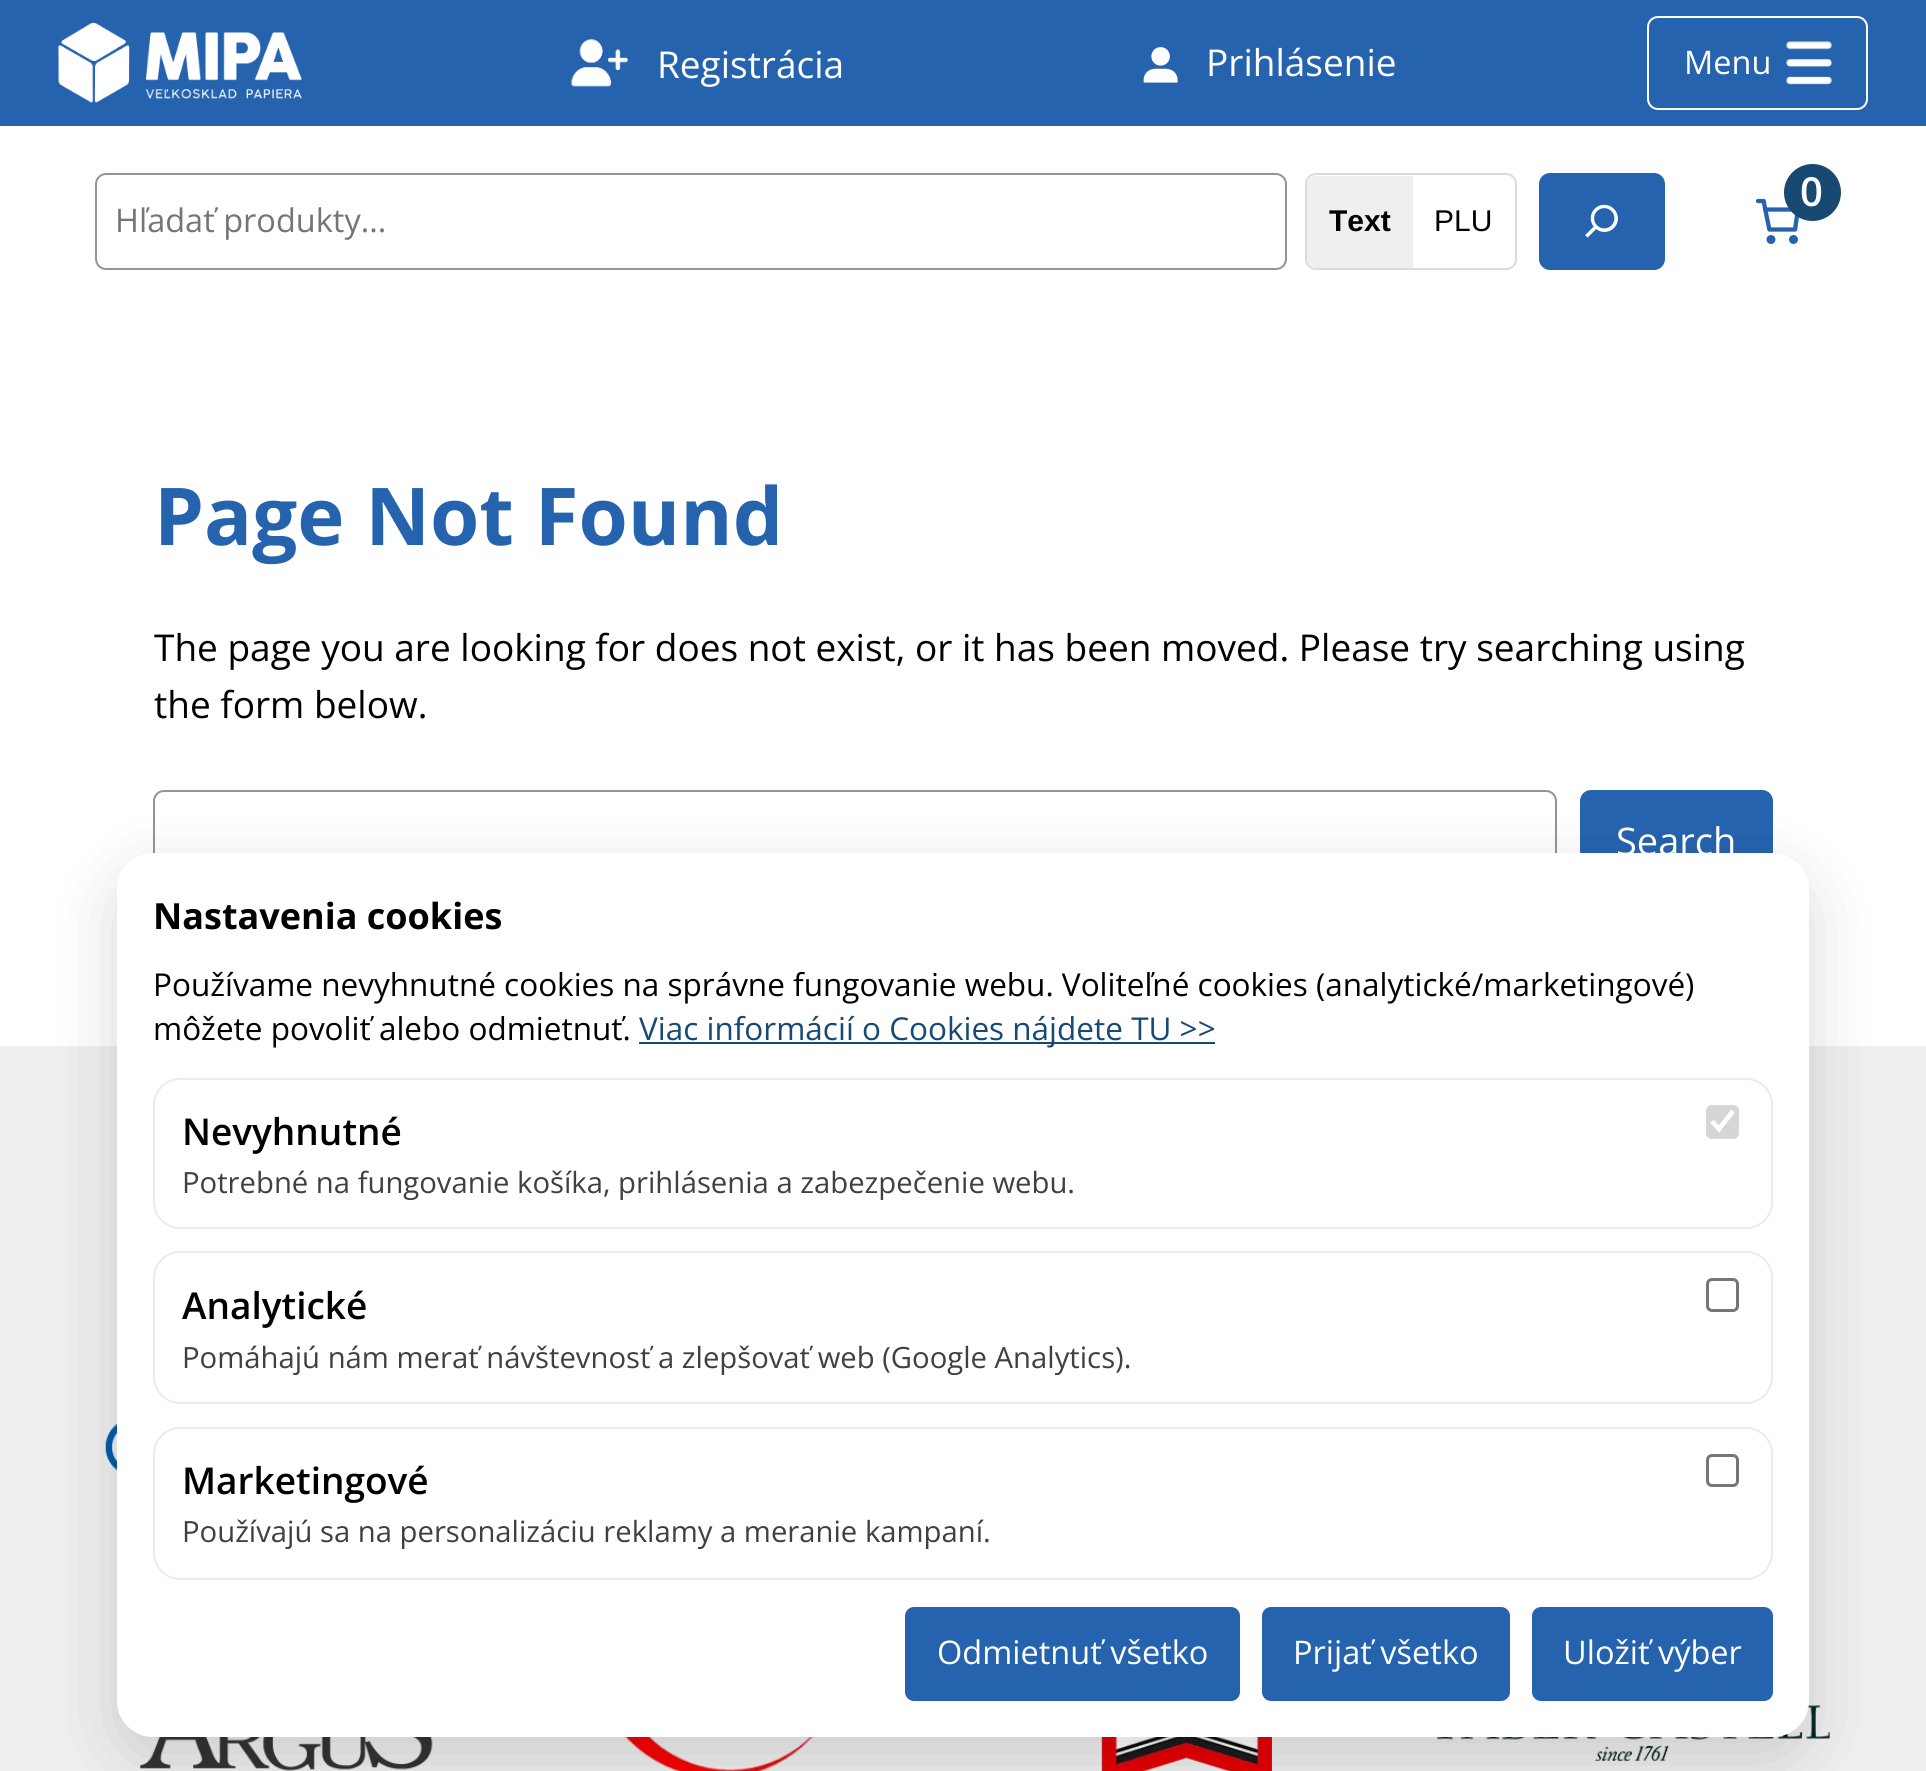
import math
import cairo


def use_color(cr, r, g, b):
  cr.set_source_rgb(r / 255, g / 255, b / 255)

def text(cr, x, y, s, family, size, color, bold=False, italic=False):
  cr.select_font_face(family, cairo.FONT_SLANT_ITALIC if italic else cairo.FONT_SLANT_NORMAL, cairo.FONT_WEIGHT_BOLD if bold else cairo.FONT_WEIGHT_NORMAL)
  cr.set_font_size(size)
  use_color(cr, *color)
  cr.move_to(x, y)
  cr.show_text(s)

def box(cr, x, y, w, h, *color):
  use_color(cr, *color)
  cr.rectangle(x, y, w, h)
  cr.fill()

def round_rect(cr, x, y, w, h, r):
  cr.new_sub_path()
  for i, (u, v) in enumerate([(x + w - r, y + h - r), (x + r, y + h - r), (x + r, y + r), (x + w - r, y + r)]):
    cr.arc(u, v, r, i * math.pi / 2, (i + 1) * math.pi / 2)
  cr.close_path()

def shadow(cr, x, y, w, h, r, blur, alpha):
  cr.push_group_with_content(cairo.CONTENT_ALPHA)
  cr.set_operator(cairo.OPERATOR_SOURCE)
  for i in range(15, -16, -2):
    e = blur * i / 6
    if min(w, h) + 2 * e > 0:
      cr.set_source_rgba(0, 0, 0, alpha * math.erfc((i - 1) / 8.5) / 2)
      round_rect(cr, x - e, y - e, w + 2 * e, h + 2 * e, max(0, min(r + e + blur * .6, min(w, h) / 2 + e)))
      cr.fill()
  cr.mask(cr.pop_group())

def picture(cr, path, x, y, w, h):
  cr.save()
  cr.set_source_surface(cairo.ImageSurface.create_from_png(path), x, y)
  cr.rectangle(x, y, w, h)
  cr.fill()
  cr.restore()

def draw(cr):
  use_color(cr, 255, 255, 255)
  cr.paint()
  box(cr, 0, 0, 1926, 126, 38, 99, 175)
  picture(cr, "img_01.png", 58, 22, 244, 81)
  picture(cr, "img_02.png", 571, 39, 57, 48)
  picture(cr, "img_03.png", 1143, 47, 35, 36)
  round_rect(cr, 1648, 17, 219, 92, 10)
  use_color(cr, 255, 255, 255)
  cr.stroke()
  picture(cr, "img_04.png", 1786, 41, 46, 44)
  picture(cr, "img_05.png", 1755, 198, 44, 46)
  use_color(cr, 24, 73, 115)
  cr.arc(1812.5, 192.5, 28.5, 0, 2 * math.pi)
  cr.fill()
  round_rect(cr, 96, 174, 1190, 95, 10)
  use_color(cr, 148, 148, 148)
  cr.stroke()
  round_rect(cr, 1306, 174, 210, 95, 10)
  use_color(cr, 220, 219, 219)
  cr.stroke()
  use_color(cr, 240, 239, 239)
  cr.new_path()
  cr.move_to(1316, 176)
  cr.line_to(1413, 176)
  cr.line_to(1413, 268)
  cr.line_to(1316, 268)
  cr.curve_to(1311, 268, 1307, 264, 1307, 259)
  cr.line_to(1307, 185)
  cr.curve_to(1307, 180, 1311, 176, 1316, 176)
  cr.close_path()
  cr.fill()
  use_color(cr, 38, 99, 175)
  round_rect(cr, 1539, 173, 126, 97, 11)
  cr.fill()
  picture(cr, "img_06.png", 1585, 204, 33, 34)
  round_rect(cr, 154, 791, 1402, 101, 10)
  use_color(cr, 148, 148, 148)
  cr.stroke()
  use_color(cr, 38, 99, 175)
  round_rect(cr, 1580, 790, 193, 103, 11)
  cr.fill()
  box(cr, 0, 1046, 1926, 725, 240, 239, 239)
  picture(cr, "img_07.png", 105, 1423, 12, 48)
  picture(cr, "img_08.png", 139, 1737, 294, 34)
  picture(cr, "img_09.png", 624, 1737, 190, 34)
  picture(cr, "img_10.png", 1101, 1737, 171, 34)
  picture(cr, "img_11.png", 1437, 1705, 393, 56)
  use_color(cr, 0, 0, 0)
  shadow(cr, 117, 875, 1692, 885, 36, 34, 0.15)
  use_color(cr, 255, 255, 255)
  round_rect(cr, 117, 853, 1692, 884, 36)
  cr.fill()
  box(cr, 639, 1042, 576, 2, 24, 73, 115)
  round_rect(cr, 154, 1079, 1618, 149, 26)
  use_color(cr, 235, 235, 235)
  cr.stroke()
  use_color(cr, 214, 214, 214)
  round_rect(cr, 1706, 1105, 33, 34, 6)
  cr.fill()
  cr.new_path()
  cr.move_to(1712, 1121.5)
  cr.line_to(1719, 1129)
  cr.line_to(1733, 1111)
  use_color(cr, 255, 255, 255)
  cr.set_line_width(4.7)
  cr.stroke()
  round_rect(cr, 154, 1252, 1618, 151, 26)
  use_color(cr, 235, 235, 235)
  cr.set_line_width(2)
  cr.stroke()
  round_rect(cr, 1707.5, 1279.5, 30, 31, 4.5)
  use_color(cr, 118, 118, 118)
  cr.set_line_width(3)
  cr.stroke()
  round_rect(cr, 154, 1428, 1618, 151, 26)
  use_color(cr, 235, 235, 235)
  cr.set_line_width(2)
  cr.stroke()
  round_rect(cr, 1707.5, 1455.5, 30, 30, 4.5)
  use_color(cr, 118, 118, 118)
  cr.set_line_width(3)
  cr.stroke()
  use_color(cr, 38, 99, 175)
  round_rect(cr, 905, 1607, 335, 94, 9)
  cr.fill()
  round_rect(cr, 1262, 1607, 248, 94, 9)
  cr.fill()
  round_rect(cr, 1532, 1607, 241, 94, 9)
  cr.fill()
  text(cr, 657, 78, "Registrácia", "Open Sans", 37, (255, 255, 255))
  text(cr, 1206, 76, "Prihlásenie", "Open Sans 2", 37, (255, 255, 255))
  text(cr, 1684, 74, "Menu", "Open Sans", 32.5, (255, 255, 255))
  text(cr, 1800, 206, "0", "Open Sans SemiBold", 40, (255, 255, 255))
  text(cr, 115, 232, "Hľadať produkty...", "Open Sans 2", 32.5, (117, 117, 117))
  text(cr, 1329, 231, "Text", "Liberation Sans", 30, (0, 0, 0), bold=True)
  text(cr, 1434, 231, "PLU", "Liberation Sans", 30, (0, 0, 0))
  text(cr, 154, 545, "Page Not Found", "Open Sans", 79.75, (38, 99, 175), bold=True)
  text(cr, 154, 661, "The page you are looking for does not exist, or it has been moved. Please try searching using", "Open Sans 2", 37, (0, 0, 0))
  text(cr, 154, 718, "the form below.", "Open Sans 2", 37, (0, 0, 0))
  text(cr, 1616, 855, "Search", "Open Sans", 38, (255, 255, 255))
  text(cr, 153, 929, "Nastavenia cookies", "Open Sans", 36, (0, 0, 0), bold=True)
  text(cr, 153, 996, "Používame nevyhnutné cookies na správne fungovanie webu. Voliteľné cookies (analytické/marketingové)", "Open Sans 2", 31.5, (0, 0, 0))
  text(cr, 153, 1040, "môžete povoliť alebo odmietnuť.", "Open Sans 2", 31.5, (0, 0, 0))
  text(cr, 639, 1040, "Viac informácií o Cookies nájdete TU >>", "Open Sans 2", 31.5, (24, 73, 115))
  text(cr, 182, 1145, "Nevyhnutné", "Open Sans SemiBold", 37, (0, 0, 0))
  text(cr, 182, 1193, "Potrebné na fungovanie košíka, prihlásenia a zabezpečenie webu.", "Open Sans 2", 29.25, (64, 64, 64))
  text(cr, 182, 1319, "Analytické", "Open Sans SemiBold", 37, (0, 0, 0))
  text(cr, 182, 1368, "Pomáhajú nám merať návštevnosť a zlepšovať web (Google Analytics).", "Open Sans 2", 29.25, (64, 64, 64))
  text(cr, 182, 1494, "Marketingové", "Open Sans SemiBold", 37, (0, 0, 0))
  text(cr, 182, 1542, "Používajú sa na personalizáciu reklamy a meranie kampaní.", "Open Sans 2", 29.25, (64, 64, 64))
  text(cr, 937, 1664, "Odmietnuť všetko", "Open Sans", 32.5, (255, 255, 255))
  text(cr, 1293, 1664, "Prijať všetko", "Open Sans", 32.5, (255, 255, 255))
  text(cr, 1563, 1664, "Uložiť výber", "Open Sans", 32.5, (255, 255, 255))


surface = cairo.ImageSurface(cairo.FORMAT_RGB24, 1926, 1771)
cr = cairo.Context(surface)
options = cairo.FontOptions()
options.set_hint_metrics(cairo.HINT_METRICS_OFF)
options.set_hint_style(cairo.HINT_STYLE_NONE)
cr.set_font_options(options)
cr.set_miter_limit(4)
draw(cr)
surface.write_to_png("out.png")
